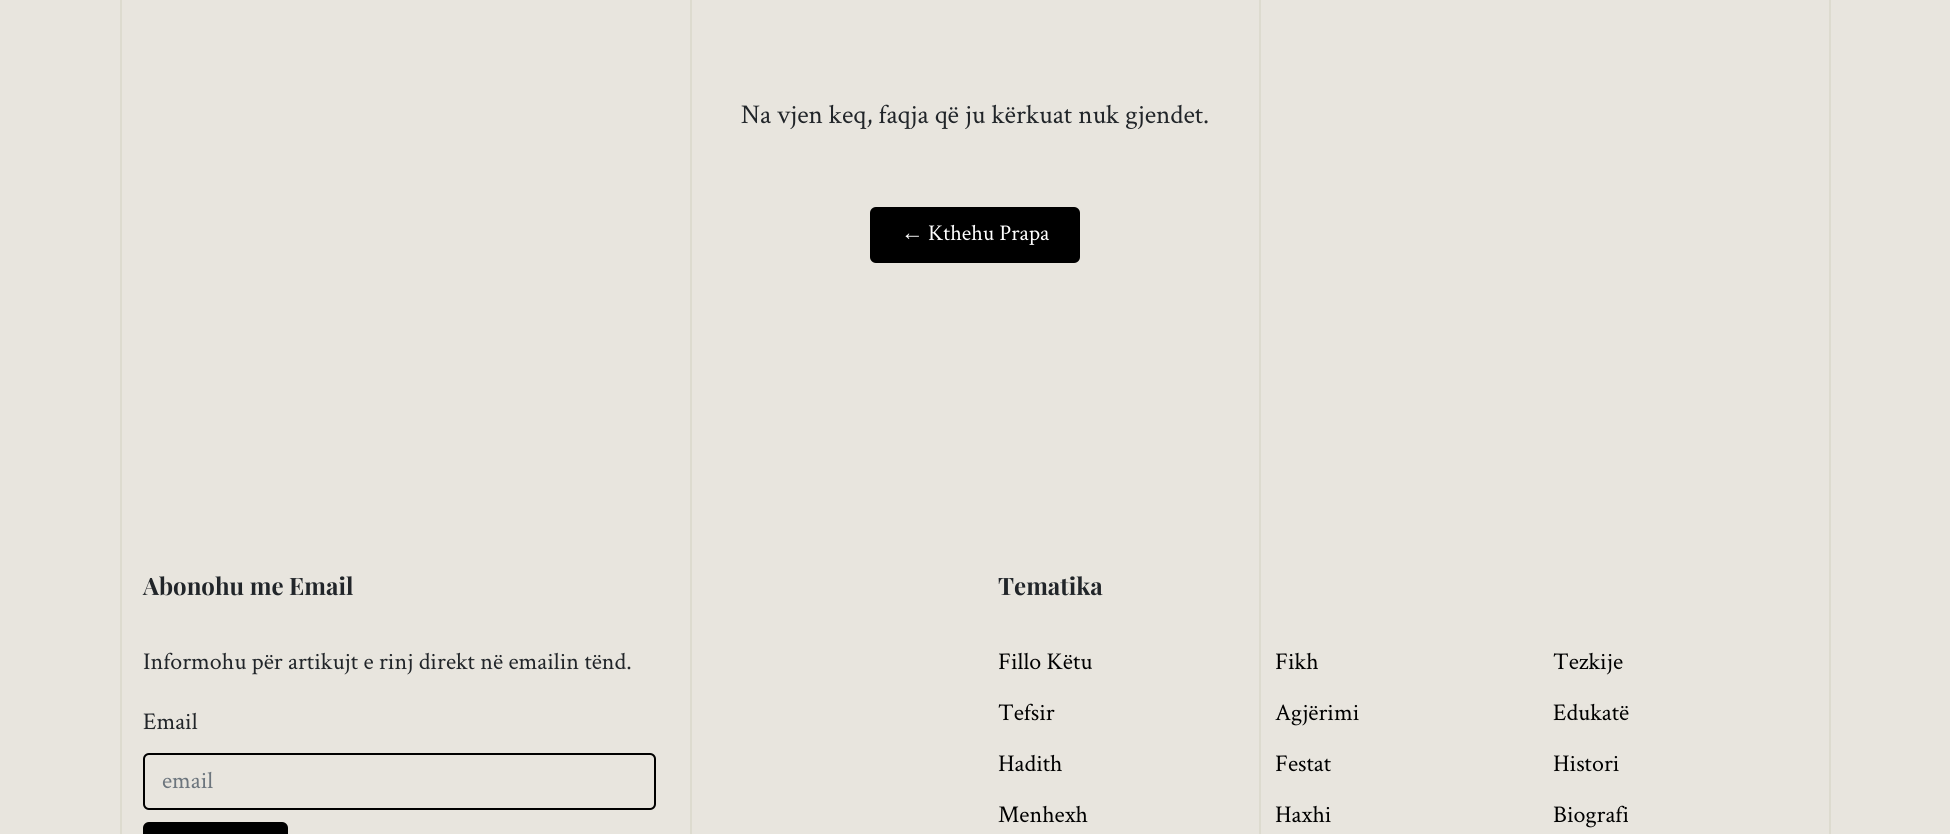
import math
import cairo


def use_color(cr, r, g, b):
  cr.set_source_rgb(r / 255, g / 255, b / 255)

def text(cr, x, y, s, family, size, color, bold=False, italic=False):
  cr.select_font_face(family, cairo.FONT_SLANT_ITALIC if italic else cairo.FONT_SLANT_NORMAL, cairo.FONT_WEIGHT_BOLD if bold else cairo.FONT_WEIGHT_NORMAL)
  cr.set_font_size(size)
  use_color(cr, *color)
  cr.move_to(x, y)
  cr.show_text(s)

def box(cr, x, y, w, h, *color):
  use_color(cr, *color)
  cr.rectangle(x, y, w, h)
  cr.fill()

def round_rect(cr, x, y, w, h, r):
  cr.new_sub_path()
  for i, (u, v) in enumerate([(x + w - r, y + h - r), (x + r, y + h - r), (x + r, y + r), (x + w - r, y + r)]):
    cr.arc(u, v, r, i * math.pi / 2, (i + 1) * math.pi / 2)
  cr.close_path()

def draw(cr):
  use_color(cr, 232, 229, 222)
  cr.paint()
  box(cr, 1829, 0, 2, 834, 221, 219, 207)
  box(cr, 120, 0, 2, 834, 221, 219, 207)
  box(cr, 1259, 0, 2, 834, 221, 219, 207)
  box(cr, 690, 0, 2, 834, 221, 219, 207)
  use_color(cr, 0, 0, 0)
  round_rect(cr, 871, 208, 208, 54, 5)
  cr.fill_preserve()
  cr.stroke()
  round_rect(cr, 144, 754, 511, 55, 5)
  cr.stroke()
  round_rect(cr, 144, 823, 143, 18, 5)
  cr.fill_preserve()
  cr.stroke()
  text(cr, 741, 123, "Na vjen keq, faqja që ju kërkuat nuk gjendet.", "Crimson Text", 27, (33, 37, 41))
  text(cr, 901, 240, "←", "Liberation Serif", 22.5, (255, 255, 255))
  text(cr, 928, 240, "Kthehu Prapa", "Crimson Text", 22.5, (255, 255, 255))
  text(cr, 143, 595, "Abonohu me Email", "Playfair Display", 24, (33, 37, 41), bold=True)
  text(cr, 143, 669, "Informohu për artikujt e rinj direkt në emailin tënd.", "Crimson Text", 24, (33, 37, 41))
  text(cr, 143, 729, "Email", "Crimson Text", 24, (33, 37, 41))
  text(cr, 162, 788, "email", "Crimson Text", 24, (108, 117, 125))
  text(cr, 998, 595, "Tematika", "Playfair Display", 24, (33, 37, 41), bold=True)
  text(cr, 998, 669, "Fillo Këtu", "Crimson Text", 24, (0, 0, 0))
  text(cr, 1275, 669, "Fikh", "Crimson Text", 24, (0, 0, 0))
  text(cr, 1553, 669, "Tezkije", "Crimson Text", 24, (0, 0, 0))
  text(cr, 998, 720, "Tefsir", "Crimson Text", 24, (0, 0, 0))
  text(cr, 1275, 720, "Agjërimi", "Crimson Text", 24, (0, 0, 0))
  text(cr, 1553, 720, "Edukatë", "Crimson Text", 24, (0, 0, 0))
  text(cr, 998, 771, "Hadith", "Crimson Text", 24, (0, 0, 0))
  text(cr, 1275, 771, "Festat", "Crimson Text", 24, (0, 0, 0))
  text(cr, 1553, 771, "Histori", "Crimson Text", 24, (0, 0, 0))
  text(cr, 998, 822, "Menhexh", "Crimson Text", 24, (0, 0, 0))
  text(cr, 1275, 822, "Haxhi", "Crimson Text", 24, (0, 0, 0))
  text(cr, 1553, 822, "Biografi", "Crimson Text", 24, (0, 0, 0))


surface = cairo.ImageSurface(cairo.FORMAT_RGB24, 1950, 834)
cr = cairo.Context(surface)
options = cairo.FontOptions()
options.set_hint_metrics(cairo.HINT_METRICS_OFF)
options.set_hint_style(cairo.HINT_STYLE_NONE)
cr.set_font_options(options)
cr.set_miter_limit(4)
draw(cr)
surface.write_to_png("out.png")
